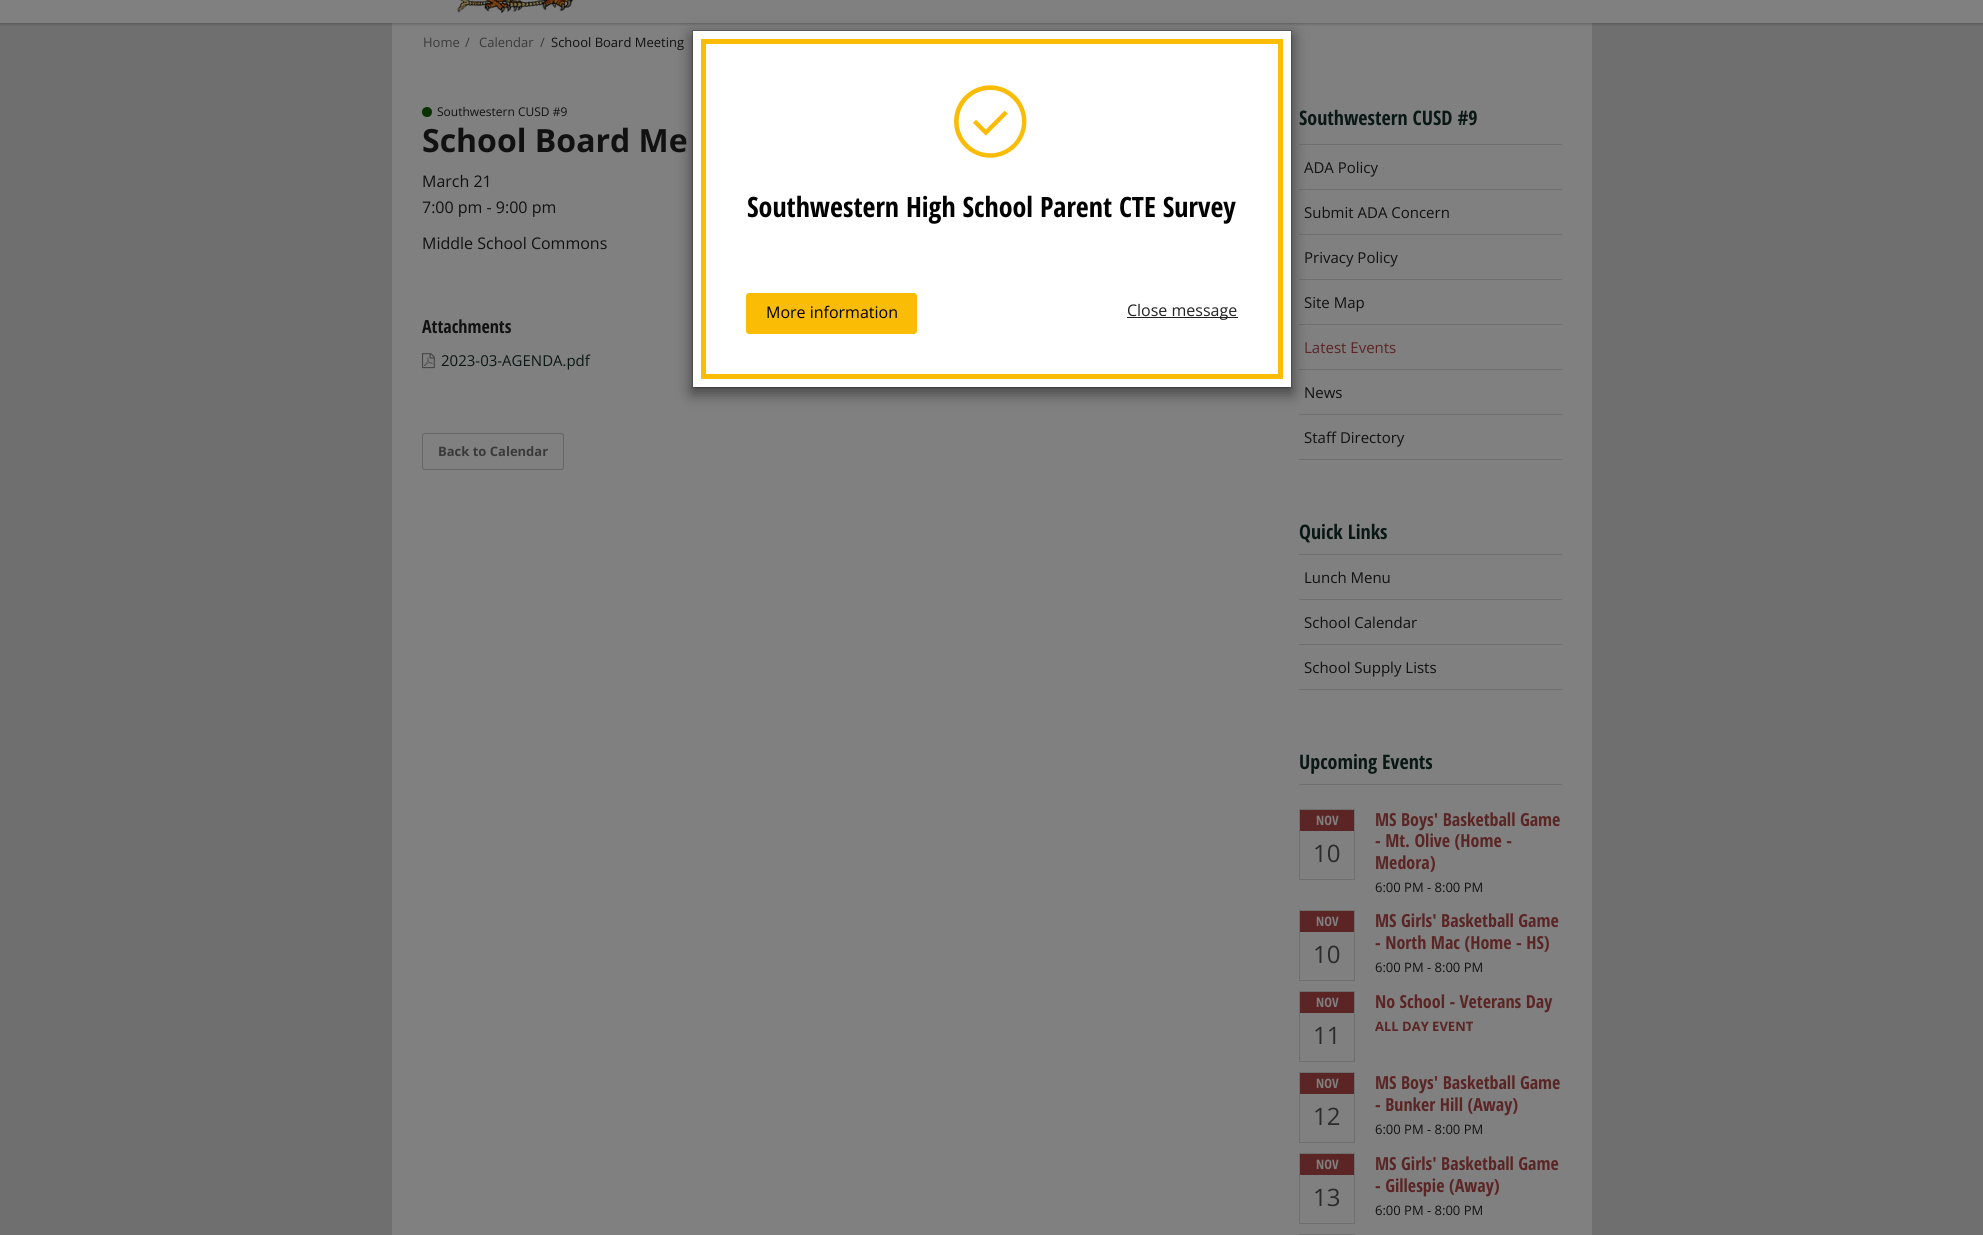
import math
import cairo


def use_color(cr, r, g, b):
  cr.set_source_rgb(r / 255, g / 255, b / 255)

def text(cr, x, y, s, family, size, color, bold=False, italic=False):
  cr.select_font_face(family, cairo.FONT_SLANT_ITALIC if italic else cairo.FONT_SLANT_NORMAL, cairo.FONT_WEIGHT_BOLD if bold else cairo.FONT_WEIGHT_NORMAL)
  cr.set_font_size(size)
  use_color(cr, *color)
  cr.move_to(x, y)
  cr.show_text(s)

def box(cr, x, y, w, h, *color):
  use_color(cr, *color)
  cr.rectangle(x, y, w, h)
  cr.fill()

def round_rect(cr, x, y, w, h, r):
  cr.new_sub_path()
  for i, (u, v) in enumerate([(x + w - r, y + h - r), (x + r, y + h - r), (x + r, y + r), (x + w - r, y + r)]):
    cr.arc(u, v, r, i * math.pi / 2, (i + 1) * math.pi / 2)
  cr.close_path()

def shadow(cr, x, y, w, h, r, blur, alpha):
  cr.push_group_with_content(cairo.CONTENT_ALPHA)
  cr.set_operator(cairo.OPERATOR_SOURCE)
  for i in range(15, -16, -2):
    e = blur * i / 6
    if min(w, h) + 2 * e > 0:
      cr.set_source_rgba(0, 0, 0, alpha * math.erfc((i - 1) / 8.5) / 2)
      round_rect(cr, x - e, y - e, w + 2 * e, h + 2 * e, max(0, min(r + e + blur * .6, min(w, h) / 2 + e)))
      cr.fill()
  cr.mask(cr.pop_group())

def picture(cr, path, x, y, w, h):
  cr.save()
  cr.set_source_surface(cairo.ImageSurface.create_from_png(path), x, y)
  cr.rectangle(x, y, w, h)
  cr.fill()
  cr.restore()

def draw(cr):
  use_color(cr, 111, 111, 111)
  cr.paint()
  box(cr, 392, 23, 1200, 1212, 128, 128, 128)
  use_color(cr, 0, 0, 0)
  shadow(cr, 0, -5, 1983, 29, 0, 1.5, 0.25)
  box(cr, 0, 0, 1983, 23, 128, 128, 128)
  picture(cr, "img_01.png", 457, 0, 117, 14)
  use_color(cr, 8, 51, 1)
  cr.arc(427, 112, 5, 0, 2 * math.pi)
  cr.fill()
  picture(cr, "img_02.png", 422, 353, 13, 16)
  round_rect(cr, 422.5, 433.5, 141, 36, 2.5)
  use_color(cr, 102, 102, 102)
  cr.set_line_width(1)
  cr.stroke()
  box(cr, 1299, 144, 263, 1, 111, 111, 111)
  box(cr, 1299, 189, 263, 1, 111, 111, 111)
  box(cr, 1299, 234, 263, 1, 111, 111, 111)
  box(cr, 1299, 279, 263, 1, 111, 111, 111)
  box(cr, 1299, 324, 263, 1, 111, 111, 111)
  box(cr, 1299, 369, 263, 1, 111, 111, 111)
  box(cr, 1299, 414, 263, 1, 111, 111, 111)
  box(cr, 1299, 459, 263, 1, 111, 111, 111)
  box(cr, 1299, 554, 263, 1, 111, 111, 111)
  box(cr, 1299, 599, 263, 1, 111, 111, 111)
  box(cr, 1299, 644, 263, 1, 111, 111, 111)
  box(cr, 1299, 689, 263, 1, 111, 111, 111)
  box(cr, 1299, 784, 263, 1, 111, 111, 111)
  cr.rectangle(1299.5, 809.5, 55, 70)
  cr.stroke()
  box(cr, 1300, 810, 54, 21, 90, 37, 36)
  cr.rectangle(1299.5, 910.5, 55, 70)
  use_color(cr, 111, 111, 111)
  cr.stroke()
  box(cr, 1300, 911, 54, 21, 90, 37, 36)
  cr.rectangle(1299.5, 991.5, 55, 70)
  use_color(cr, 111, 111, 111)
  cr.stroke()
  box(cr, 1300, 992, 54, 21, 90, 37, 36)
  cr.rectangle(1299.5, 1072.5, 55, 70)
  use_color(cr, 111, 111, 111)
  cr.stroke()
  box(cr, 1300, 1073, 54, 21, 90, 37, 36)
  cr.rectangle(1299.5, 1153.5, 55, 70)
  use_color(cr, 111, 111, 111)
  cr.stroke()
  box(cr, 1300, 1154, 54, 21, 90, 37, 36)
  cr.rectangle(1299.5, 1234.5, 55, 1)
  use_color(cr, 111, 111, 111)
  cr.stroke()
  use_color(cr, 0, 0, 0)
  shadow(cr, 692, 35, 600, 358, 0, 7.5, 0.5)
  box(cr, 693, 31, 598, 356, 255, 255, 255)
  cr.rectangle(692.5, 30.5, 599, 357)
  cr.set_source_rgba(0, 0, 0, 0.2)
  cr.stroke()
  cr.rectangle(703.5, 41.5, 577, 335)
  use_color(cr, 251, 188, 5)
  cr.set_line_width(5)
  cr.stroke()
  picture(cr, "img_03.png", 954, 85, 73, 73)
  round_rect(cr, 746, 293, 171, 41, 3)
  cr.fill()
  box(cr, 1127, 317, 111, 1, 34, 34, 34)
  text(cr, 423, 47, "Home", "Open Sans", 13, (58, 58, 58))
  text(cr, 465, 47, "/", "Open Sans", 13, (58, 58, 58))
  text(cr, 479, 47, "Calendar", "Open Sans", 13, (58, 58, 58))
  text(cr, 540, 47, "/", "Open Sans", 13, (58, 58, 58))
  text(cr, 551, 47, "School Board Meeting", "Open Sans", 13, (17, 17, 17))
  text(cr, 437, 116, "Southwestern CUSD #9", "Open Sans", 12, (17, 17, 17))
  text(cr, 422, 152, "School Board Me", "Open Sans", 32, (17, 17, 17), bold=True)
  text(cr, 422, 187, "March 21", "Open Sans", 16, (17, 17, 17))
  text(cr, 422, 213, "7:00 pm - 9:00 pm", "Open Sans", 16, (17, 17, 17))
  text(cr, 422, 249, "Middle School Commons", "Open Sans", 16, (17, 17, 17))
  text(cr, 422, 333, "Attachments", "Open Sans Condensed", 18, (17, 17, 17), bold=True)
  text(cr, 441, 366, "2023-03-AGENDA.pdf", "Open Sans", 15, (10, 24, 21))
  text(cr, 438, 456, "Back to Calendar", "Open Sans", 13, (58, 58, 58), bold=True)
  text(cr, 1299, 125, "Southwestern CUSD #9", "Open Sans Condensed", 20, (10, 24, 21), bold=True)
  text(cr, 1304, 173, "ADA Policy", "Open Sans", 15, (17, 17, 17))
  text(cr, 1304, 218, "Submit ADA Concern", "Open Sans", 15, (17, 17, 17))
  text(cr, 1304, 263, "Privacy Policy", "Open Sans", 15, (17, 17, 17))
  text(cr, 1304, 308, "Site Map", "Open Sans", 15, (17, 17, 17))
  text(cr, 1304, 353, "Latest Events", "Open Sans", 15, (90, 37, 36))
  text(cr, 1304, 398, "News", "Open Sans", 15, (17, 17, 17))
  text(cr, 1304, 443, "Staff Directory", "Open Sans", 15, (17, 17, 17))
  text(cr, 1299, 539, "Quick Links", "Open Sans Condensed", 20, (10, 24, 21), bold=True)
  text(cr, 1304, 583, "Lunch Menu", "Open Sans", 15, (17, 17, 17))
  text(cr, 1304, 628, "School Calendar", "Open Sans", 15, (17, 17, 17))
  text(cr, 1304, 673, "School Supply Lists", "Open Sans", 15, (17, 17, 17))
  text(cr, 1299, 769, "Upcoming Events", "Open Sans Condensed", 20, (10, 24, 21), bold=True)
  text(cr, 1316, 825, "NOV", "Open Sans Condensed", 13, (128, 128, 128), bold=True)
  text(cr, 1313, 862, "10", "Open Sans", 24, (43, 43, 43))
  text(cr, 1375, 826, "MS Boys' Basketball Game", "Open Sans Condensed", 18, (90, 37, 36), bold=True)
  text(cr, 1375, 847, "- Mt. Olive (Home -", "Open Sans Condensed", 18, (90, 37, 36), bold=True)
  text(cr, 1375, 869, "Medora)", "Open Sans Condensed", 18, (90, 37, 36), bold=True)
  text(cr, 1375, 892, "6:00 PM - 8:00 PM", "Open Sans", 13, (17, 17, 17))
  text(cr, 1316, 926, "NOV", "Open Sans Condensed", 13, (128, 128, 128), bold=True)
  text(cr, 1313, 963, "10", "Open Sans", 24, (43, 43, 43))
  text(cr, 1375, 927, "MS Girls' Basketball Game", "Open Sans Condensed", 18, (90, 37, 36), bold=True)
  text(cr, 1375, 949, "- North Mac (Home - HS)", "Open Sans Condensed", 18, (90, 37, 36), bold=True)
  text(cr, 1375, 972, "6:00 PM - 8:00 PM", "Open Sans", 13, (17, 17, 17))
  text(cr, 1316, 1007, "NOV", "Open Sans Condensed", 13, (128, 128, 128), bold=True)
  text(cr, 1313, 1044, "11", "Open Sans", 24, (43, 43, 43))
  text(cr, 1375, 1008, "No School - Veterans Day", "Open Sans Condensed", 18, (90, 37, 36), bold=True)
  text(cr, 1375, 1031, "ALL DAY EVENT", "Open Sans", 13, (90, 37, 36), bold=True)
  text(cr, 1316, 1088, "NOV", "Open Sans Condensed", 13, (128, 128, 128), bold=True)
  text(cr, 1313, 1125, "12", "Open Sans", 24, (43, 43, 43))
  text(cr, 1375, 1089, "MS Boys' Basketball Game", "Open Sans Condensed", 18, (90, 37, 36), bold=True)
  text(cr, 1375, 1111, "- Bunker Hill (Away)", "Open Sans Condensed", 18, (90, 37, 36), bold=True)
  text(cr, 1375, 1134, "6:00 PM - 8:00 PM", "Open Sans", 13, (17, 17, 17))
  text(cr, 1316, 1169, "NOV", "Open Sans Condensed", 13, (128, 128, 128), bold=True)
  text(cr, 1313, 1206, "13", "Open Sans", 24, (43, 43, 43))
  text(cr, 1375, 1170, "MS Girls' Basketball Game", "Open Sans Condensed", 18, (90, 37, 36), bold=True)
  text(cr, 1375, 1192, "- Gillespie (Away)", "Open Sans Condensed", 18, (90, 37, 36), bold=True)
  text(cr, 1375, 1215, "6:00 PM - 8:00 PM", "Open Sans", 13, (17, 17, 17))
  text(cr, 747, 217, "Southwestern High School Parent CTE Survey", "Open Sans Condensed", 28, (0, 0, 0), bold=True)
  text(cr, 766, 318, "More information", "Open Sans", 16, (0, 0, 0))
  text(cr, 1127, 316, "Close message", "Open Sans", 16, (34, 34, 34))


surface = cairo.ImageSurface(cairo.FORMAT_RGB24, 1983, 1235)
cr = cairo.Context(surface)
options = cairo.FontOptions()
options.set_hint_metrics(cairo.HINT_METRICS_OFF)
options.set_hint_style(cairo.HINT_STYLE_NONE)
cr.set_font_options(options)
cr.set_miter_limit(4)
draw(cr)
surface.write_to_png("out.png")
